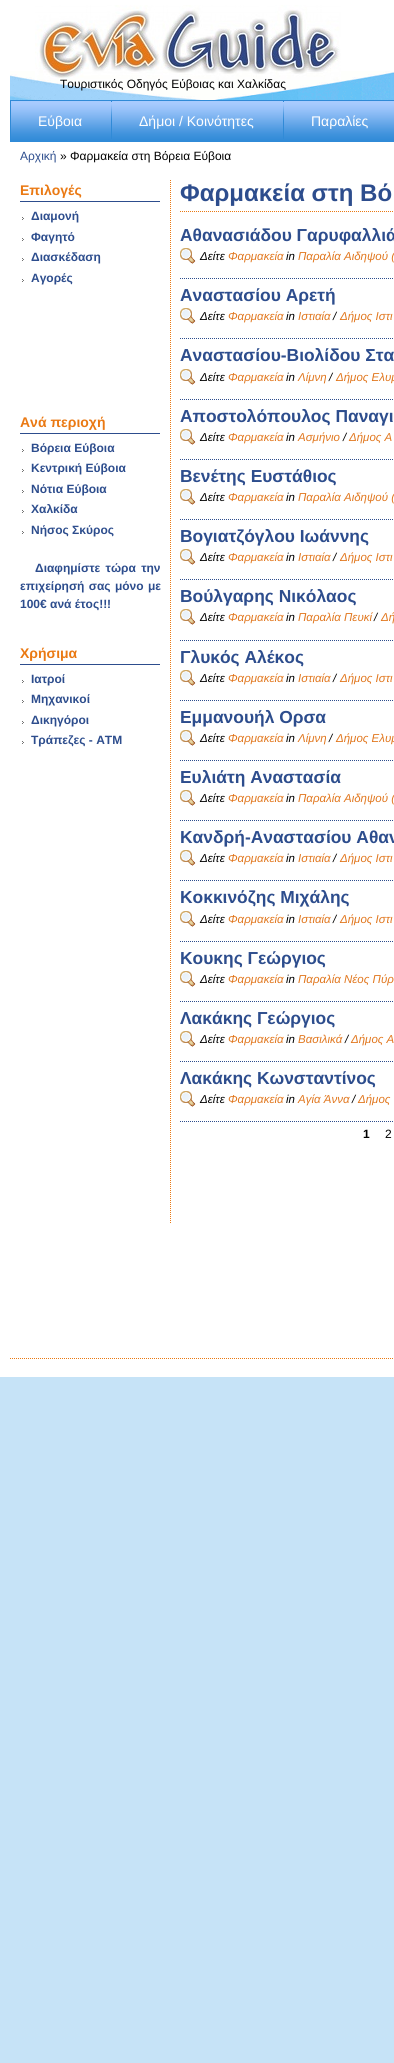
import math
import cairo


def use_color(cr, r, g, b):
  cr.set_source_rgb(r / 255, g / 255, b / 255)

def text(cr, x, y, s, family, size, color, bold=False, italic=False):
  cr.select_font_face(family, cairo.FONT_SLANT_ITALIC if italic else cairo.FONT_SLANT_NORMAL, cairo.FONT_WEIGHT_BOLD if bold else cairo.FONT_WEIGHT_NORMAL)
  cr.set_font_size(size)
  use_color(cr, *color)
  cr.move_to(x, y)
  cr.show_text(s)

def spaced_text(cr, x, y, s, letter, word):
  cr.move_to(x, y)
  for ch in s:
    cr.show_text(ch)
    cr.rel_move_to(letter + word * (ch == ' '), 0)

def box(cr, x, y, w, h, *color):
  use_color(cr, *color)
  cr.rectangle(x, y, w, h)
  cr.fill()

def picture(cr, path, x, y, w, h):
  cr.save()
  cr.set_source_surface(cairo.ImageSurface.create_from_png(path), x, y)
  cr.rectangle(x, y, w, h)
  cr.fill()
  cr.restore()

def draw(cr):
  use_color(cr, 198, 227, 247)
  cr.paint()
  box(cr, 0, 0, 394, 1377, 255, 255, 255)
  picture(cr, "img_01.png", 10, 71, 384, 29)
  picture(cr, "img_02.png", 35, 5, 306, 75)
  picture(cr, "img_03.png", 11, 101, 383, 40)
  cr.rectangle(10.5, 100.5, 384, 41)
  use_color(cr, 48, 138, 215)
  cr.set_line_width(1)
  cr.stroke()
  picture(cr, "img_04.png", 111, 101, 1, 38)
  picture(cr, "img_04.png", 283, 101, 1, 38)
  cr.new_path()
  cr.move_to(170.5, 180)
  cr.line_to(170.5, 1223)
  use_color(cr, 234, 121, 19)
  cr.set_dash([1, 1])
  cr.stroke()
  box(cr, 20, 201, 140, 1, 45, 77, 141)
  picture(cr, "img_05.png", 22, 217, 2, 3)
  picture(cr, "img_05.png", 22, 238, 2, 3)
  picture(cr, "img_05.png", 22, 258, 2, 3)
  picture(cr, "img_05.png", 22, 279, 2, 3)
  box(cr, 20, 433, 140, 1, 45, 77, 141)
  picture(cr, "img_05.png", 22, 449, 2, 3)
  picture(cr, "img_05.png", 22, 469, 2, 3)
  picture(cr, "img_05.png", 22, 490, 2, 3)
  picture(cr, "img_05.png", 22, 510, 2, 3)
  picture(cr, "img_05.png", 22, 531, 2, 3)
  box(cr, 20, 664, 140, 1, 45, 77, 141)
  picture(cr, "img_05.png", 22, 680, 2, 3)
  picture(cr, "img_05.png", 22, 700, 2, 3)
  picture(cr, "img_05.png", 22, 721, 2, 3)
  picture(cr, "img_05.png", 22, 741, 2, 3)
  cr.new_path()
  cr.move_to(180, 211.5)
  cr.line_to(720, 211.5)
  use_color(cr, 234, 121, 19)
  cr.stroke()
  cr.new_path()
  cr.move_to(180, 278.5)
  cr.line_to(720, 278.5)
  use_color(cr, 45, 77, 141)
  cr.stroke()
  picture(cr, "img_06.png", 180, 248, 16, 16)
  cr.new_path()
  cr.move_to(180, 338.5)
  cr.line_to(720, 338.5)
  cr.stroke()
  picture(cr, "img_06.png", 180, 308, 16, 16)
  cr.new_path()
  cr.move_to(180, 399.5)
  cr.line_to(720, 399.5)
  cr.stroke()
  picture(cr, "img_06.png", 180, 369, 16, 16)
  cr.new_path()
  cr.move_to(180, 459.5)
  cr.line_to(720, 459.5)
  cr.stroke()
  picture(cr, "img_06.png", 180, 429, 16, 16)
  cr.new_path()
  cr.move_to(180, 519.5)
  cr.line_to(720, 519.5)
  cr.stroke()
  picture(cr, "img_06.png", 180, 489, 16, 16)
  cr.new_path()
  cr.move_to(180, 579.5)
  cr.line_to(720, 579.5)
  cr.stroke()
  picture(cr, "img_06.png", 180, 549, 16, 16)
  cr.new_path()
  cr.move_to(180, 640.5)
  cr.line_to(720, 640.5)
  cr.stroke()
  picture(cr, "img_06.png", 180, 609, 16, 16)
  cr.new_path()
  cr.move_to(180, 700.5)
  cr.line_to(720, 700.5)
  cr.stroke()
  picture(cr, "img_06.png", 180, 670, 16, 16)
  cr.new_path()
  cr.move_to(180, 760.5)
  cr.line_to(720, 760.5)
  cr.stroke()
  picture(cr, "img_06.png", 180, 730, 16, 16)
  cr.new_path()
  cr.move_to(180, 820.5)
  cr.line_to(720, 820.5)
  cr.stroke()
  picture(cr, "img_06.png", 180, 790, 16, 16)
  cr.new_path()
  cr.move_to(180, 880.5)
  cr.line_to(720, 880.5)
  cr.stroke()
  picture(cr, "img_06.png", 180, 850, 16, 16)
  cr.new_path()
  cr.move_to(180, 941.5)
  cr.line_to(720, 941.5)
  cr.stroke()
  picture(cr, "img_06.png", 180, 911, 16, 16)
  cr.new_path()
  cr.move_to(180, 1001.5)
  cr.line_to(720, 1001.5)
  cr.stroke()
  picture(cr, "img_06.png", 180, 971, 16, 16)
  cr.new_path()
  cr.move_to(180, 1061.5)
  cr.line_to(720, 1061.5)
  cr.stroke()
  picture(cr, "img_06.png", 180, 1031, 16, 16)
  cr.new_path()
  cr.move_to(180, 1121.5)
  cr.line_to(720, 1121.5)
  cr.stroke()
  picture(cr, "img_06.png", 180, 1091, 16, 16)
  cr.new_path()
  cr.move_to(10, 1358.5)
  cr.line_to(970, 1358.5)
  use_color(cr, 234, 121, 19)
  cr.stroke()
  text(cr, 60, 88, "Τουριστικός Οδηγός Εύβοιας και Χαλκίδας", "Liberation Sans", 12, (0, 0, 0))
  text(cr, 38, 126, "Εύβοια", "Liberation Sans", 14, (255, 255, 255))
  text(cr, 139, 126, "Δήμοι / Κοινότητες", "Liberation Sans", 14, (255, 255, 255))
  text(cr, 311, 126, "Παραλίες", "Liberation Sans", 14, (255, 255, 255))
  text(cr, 20, 160, "Αρχική", "Liberation Sans", 12, (45, 77, 141))
  text(cr, 60, 160, "» Φαρμακεία στη Βόρεια Εύβοια", "Liberation Sans", 12, (0, 0, 0))
  text(cr, 20, 195, "Επιλογές", "Liberation Sans", 14, (234, 121, 19), bold=True)
  text(cr, 31, 220, "Διαμονή", "Liberation Sans", 12, (45, 77, 141), bold=True)
  text(cr, 31, 241, "Φαγητό", "Liberation Sans", 12, (45, 77, 141), bold=True)
  text(cr, 31, 261, "Διασκέδαση", "Liberation Sans", 12, (45, 77, 141), bold=True)
  text(cr, 31, 282, "Αγορές", "Liberation Sans", 12, (45, 77, 141), bold=True)
  text(cr, 20, 427, "Ανά περιοχή", "Liberation Sans", 14, (234, 121, 19), bold=True)
  text(cr, 31, 452, "Βόρεια Εύβοια", "Liberation Sans", 12, (45, 77, 141), bold=True)
  text(cr, 31, 472, "Κεντρική Εύβοια", "Liberation Sans", 12, (45, 77, 141), bold=True)
  text(cr, 31, 493, "Νότια Εύβοια", "Liberation Sans", 12, (45, 77, 141), bold=True)
  text(cr, 31, 513, "Χαλκίδα", "Liberation Sans", 12, (45, 77, 141), bold=True)
  text(cr, 31, 534, "Νήσος Σκύρος", "Liberation Sans", 12, (45, 77, 141), bold=True)
  spaced_text(cr, 35, 572, "Διαφημίστε τώρα την", 0, 2)
  spaced_text(cr, 20, 590, "επιχείρησή σας μόνο με", 0, 1)
  text(cr, 20, 608, "100€ ανά έτος!!!", "Liberation Sans", 12, (45, 77, 141), bold=True)
  text(cr, 20, 658, "Χρήσιμα", "Liberation Sans", 14, (234, 121, 19), bold=True)
  text(cr, 31, 683, "Ιατροί", "Liberation Sans", 12, (45, 77, 141), bold=True)
  text(cr, 31, 703, "Μηχανικοί", "Liberation Sans", 12, (45, 77, 141), bold=True)
  text(cr, 31, 724, "Δικηγόροι", "Liberation Sans", 12, (45, 77, 141), bold=True)
  text(cr, 31, 744, "Τράπεζες - ΑΤΜ", "Liberation Sans", 12, (45, 77, 141), bold=True)
  text(cr, 180, 201, "Φαρμακεία στη Βό", "Liberation Sans", 24, (45, 77, 141), bold=True)
  text(cr, 180, 241, "Αθανασιάδου Γαρυφαλλιά", "Liberation Sans", 17.4, (45, 77, 141), bold=True)
  text(cr, 200, 260, "Δείτε", "Liberation Sans", 11.5, (0, 0, 0), italic=True)
  text(cr, 228, 260, "Φαρμακεία", "Liberation Sans", 11.5, (225, 119, 30), italic=True)
  text(cr, 286, 260, "in", "Liberation Sans", 11.5, (0, 0, 0), italic=True)
  text(cr, 298, 260, "Παραλία Αιδηψού (", "Liberation Sans", 11.5, (225, 119, 30), italic=True)
  text(cr, 180, 301, "Αναστασίου Αρετή", "Liberation Sans", 17.4, (45, 77, 141), bold=True)
  text(cr, 200, 320, "Δείτε", "Liberation Sans", 11.5, (0, 0, 0), italic=True)
  text(cr, 228, 320, "Φαρμακεία", "Liberation Sans", 11.5, (225, 119, 30), italic=True)
  text(cr, 286, 320, "in", "Liberation Sans", 11.5, (0, 0, 0), italic=True)
  text(cr, 298, 320, "Ιστιαία", "Liberation Sans", 11.5, (225, 119, 30), italic=True)
  text(cr, 333, 320, "/", "Liberation Sans", 11.5, (0, 0, 0), italic=True)
  text(cr, 340, 320, "Δήμος Ιστι", "Liberation Sans", 11.5, (225, 119, 30), italic=True)
  text(cr, 180, 361, "Αναστασίου-Βιολίδου Στα", "Liberation Sans", 17.4, (45, 77, 141), bold=True)
  text(cr, 200, 381, "Δείτε", "Liberation Sans", 11.5, (0, 0, 0), italic=True)
  text(cr, 228, 381, "Φαρμακεία", "Liberation Sans", 11.5, (225, 119, 30), italic=True)
  text(cr, 286, 381, "in", "Liberation Sans", 11.5, (0, 0, 0), italic=True)
  text(cr, 298, 381, "Λίμνη", "Liberation Sans", 11.5, (225, 119, 30), italic=True)
  text(cr, 329, 381, "/", "Liberation Sans", 11.5, (0, 0, 0), italic=True)
  text(cr, 336, 381, "Δήμος Ελυμ", "Liberation Sans", 11.5, (225, 119, 30), italic=True)
  text(cr, 180, 422, "Αποστολόπουλος Παναγι", "Liberation Sans", 17.4, (45, 77, 141), bold=True)
  text(cr, 200, 441, "Δείτε", "Liberation Sans", 11.5, (0, 0, 0), italic=True)
  text(cr, 228, 441, "Φαρμακεία", "Liberation Sans", 11.5, (225, 119, 30), italic=True)
  text(cr, 286, 441, "in", "Liberation Sans", 11.5, (0, 0, 0), italic=True)
  text(cr, 298, 441, "Ασμήνιο", "Liberation Sans", 11.5, (225, 119, 30), italic=True)
  text(cr, 343, 441, "/", "Liberation Sans", 11.5, (0, 0, 0), italic=True)
  text(cr, 349, 441, "Δήμος Α", "Liberation Sans", 11.5, (225, 119, 30), italic=True)
  text(cr, 180, 482, "Βενέτης Ευστάθιος", "Liberation Sans", 17.4, (45, 77, 141), bold=True)
  text(cr, 200, 501, "Δείτε", "Liberation Sans", 11.5, (0, 0, 0), italic=True)
  text(cr, 228, 501, "Φαρμακεία", "Liberation Sans", 11.5, (225, 119, 30), italic=True)
  text(cr, 286, 501, "in", "Liberation Sans", 11.5, (0, 0, 0), italic=True)
  text(cr, 298, 501, "Παραλία Αιδηψού (", "Liberation Sans", 11.5, (225, 119, 30), italic=True)
  text(cr, 180, 542, "Βογιατζόγλου Ιωάννης", "Liberation Sans", 17.4, (45, 77, 141), bold=True)
  text(cr, 200, 561, "Δείτε", "Liberation Sans", 11.5, (0, 0, 0), italic=True)
  text(cr, 228, 561, "Φαρμακεία", "Liberation Sans", 11.5, (225, 119, 30), italic=True)
  text(cr, 286, 561, "in", "Liberation Sans", 11.5, (0, 0, 0), italic=True)
  text(cr, 298, 561, "Ιστιαία", "Liberation Sans", 11.5, (225, 119, 30), italic=True)
  text(cr, 333, 561, "/", "Liberation Sans", 11.5, (0, 0, 0), italic=True)
  text(cr, 340, 561, "Δήμος Ιστι", "Liberation Sans", 11.5, (225, 119, 30), italic=True)
  text(cr, 180, 602, "Βούλγαρης Νικόλαος", "Liberation Sans", 17.4, (45, 77, 141), bold=True)
  text(cr, 200, 621, "Δείτε", "Liberation Sans", 11.5, (0, 0, 0), italic=True)
  text(cr, 228, 621, "Φαρμακεία", "Liberation Sans", 11.5, (225, 119, 30), italic=True)
  text(cr, 286, 621, "in", "Liberation Sans", 11.5, (0, 0, 0), italic=True)
  text(cr, 298, 621, "Παραλία Πευκί", "Liberation Sans", 11.5, (225, 119, 30), italic=True)
  text(cr, 374, 621, "/", "Liberation Sans", 11.5, (0, 0, 0), italic=True)
  text(cr, 381, 621, "Δή", "Liberation Sans", 11.5, (225, 119, 30), italic=True)
  text(cr, 180, 663, "Γλυκός Αλέκος", "Liberation Sans", 17.4, (45, 77, 141), bold=True)
  text(cr, 200, 682, "Δείτε", "Liberation Sans", 11.5, (0, 0, 0), italic=True)
  text(cr, 228, 682, "Φαρμακεία", "Liberation Sans", 11.5, (225, 119, 30), italic=True)
  text(cr, 286, 682, "in", "Liberation Sans", 11.5, (0, 0, 0), italic=True)
  text(cr, 298, 682, "Ιστιαία", "Liberation Sans", 11.5, (225, 119, 30), italic=True)
  text(cr, 333, 682, "/", "Liberation Sans", 11.5, (0, 0, 0), italic=True)
  text(cr, 340, 682, "Δήμος Ιστι", "Liberation Sans", 11.5, (225, 119, 30), italic=True)
  text(cr, 180, 723, "Εμμανουήλ Ορσα", "Liberation Sans", 17.4, (45, 77, 141), bold=True)
  text(cr, 200, 742, "Δείτε", "Liberation Sans", 11.5, (0, 0, 0), italic=True)
  text(cr, 228, 742, "Φαρμακεία", "Liberation Sans", 11.5, (225, 119, 30), italic=True)
  text(cr, 286, 742, "in", "Liberation Sans", 11.5, (0, 0, 0), italic=True)
  text(cr, 298, 742, "Λίμνη", "Liberation Sans", 11.5, (225, 119, 30), italic=True)
  text(cr, 329, 742, "/", "Liberation Sans", 11.5, (0, 0, 0), italic=True)
  text(cr, 336, 742, "Δήμος Ελυμ", "Liberation Sans", 11.5, (225, 119, 30), italic=True)
  text(cr, 180, 783, "Ευλιάτη Αναστασία", "Liberation Sans", 17.4, (45, 77, 141), bold=True)
  text(cr, 200, 802, "Δείτε", "Liberation Sans", 11.5, (0, 0, 0), italic=True)
  text(cr, 228, 802, "Φαρμακεία", "Liberation Sans", 11.5, (225, 119, 30), italic=True)
  text(cr, 286, 802, "in", "Liberation Sans", 11.5, (0, 0, 0), italic=True)
  text(cr, 298, 802, "Παραλία Αιδηψού (", "Liberation Sans", 11.5, (225, 119, 30), italic=True)
  text(cr, 180, 843, "Κανδρή-Αναστασίου Αθαν", "Liberation Sans", 17.4, (45, 77, 141), bold=True)
  text(cr, 200, 862, "Δείτε", "Liberation Sans", 11.5, (0, 0, 0), italic=True)
  text(cr, 228, 862, "Φαρμακεία", "Liberation Sans", 11.5, (225, 119, 30), italic=True)
  text(cr, 286, 862, "in", "Liberation Sans", 11.5, (0, 0, 0), italic=True)
  text(cr, 298, 862, "Ιστιαία", "Liberation Sans", 11.5, (225, 119, 30), italic=True)
  text(cr, 333, 862, "/", "Liberation Sans", 11.5, (0, 0, 0), italic=True)
  text(cr, 340, 862, "Δήμος Ιστι", "Liberation Sans", 11.5, (225, 119, 30), italic=True)
  text(cr, 180, 903, "Κοκκινόζης Μιχάλης", "Liberation Sans", 17.4, (45, 77, 141), bold=True)
  text(cr, 200, 923, "Δείτε", "Liberation Sans", 11.5, (0, 0, 0), italic=True)
  text(cr, 228, 923, "Φαρμακεία", "Liberation Sans", 11.5, (225, 119, 30), italic=True)
  text(cr, 286, 923, "in", "Liberation Sans", 11.5, (0, 0, 0), italic=True)
  text(cr, 298, 923, "Ιστιαία", "Liberation Sans", 11.5, (225, 119, 30), italic=True)
  text(cr, 333, 923, "/", "Liberation Sans", 11.5, (0, 0, 0), italic=True)
  text(cr, 340, 923, "Δήμος Ιστι", "Liberation Sans", 11.5, (225, 119, 30), italic=True)
  text(cr, 180, 964, "Κουκης Γεώργιος", "Liberation Sans", 17.4, (45, 77, 141), bold=True)
  text(cr, 200, 983, "Δείτε", "Liberation Sans", 11.5, (0, 0, 0), italic=True)
  text(cr, 228, 983, "Φαρμακεία", "Liberation Sans", 11.5, (225, 119, 30), italic=True)
  text(cr, 286, 983, "in", "Liberation Sans", 11.5, (0, 0, 0), italic=True)
  text(cr, 298, 983, "Παραλία Νέος Πύρ", "Liberation Sans", 11.5, (225, 119, 30), italic=True)
  text(cr, 180, 1024, "Λακάκης Γεώργιος", "Liberation Sans", 17.4, (45, 77, 141), bold=True)
  text(cr, 200, 1043, "Δείτε", "Liberation Sans", 11.5, (0, 0, 0), italic=True)
  text(cr, 228, 1043, "Φαρμακεία", "Liberation Sans", 11.5, (225, 119, 30), italic=True)
  text(cr, 286, 1043, "in", "Liberation Sans", 11.5, (0, 0, 0), italic=True)
  text(cr, 298, 1043, "Βασιλικά", "Liberation Sans", 11.5, (225, 119, 30), italic=True)
  text(cr, 345, 1043, "/", "Liberation Sans", 11.5, (0, 0, 0), italic=True)
  text(cr, 351, 1043, "Δήμος Α", "Liberation Sans", 11.5, (225, 119, 30), italic=True)
  text(cr, 180, 1084, "Λακάκης Κωνσταντίνος", "Liberation Sans", 17.4, (45, 77, 141), bold=True)
  text(cr, 200, 1103, "Δείτε", "Liberation Sans", 11.5, (0, 0, 0), italic=True)
  text(cr, 228, 1103, "Φαρμακεία", "Liberation Sans", 11.5, (225, 119, 30), italic=True)
  text(cr, 286, 1103, "in", "Liberation Sans", 11.5, (0, 0, 0), italic=True)
  text(cr, 298, 1103, "Αγία Άννα", "Liberation Sans", 11.5, (225, 119, 30), italic=True)
  text(cr, 352, 1103, "/", "Liberation Sans", 11.5, (0, 0, 0), italic=True)
  text(cr, 358, 1103, "Δήμος", "Liberation Sans", 11.5, (225, 119, 30), italic=True)
  text(cr, 363, 1138, "1", "Liberation Sans", 12, (0, 0, 0), bold=True)
  text(cr, 385, 1138, "2", "Liberation Sans", 12, (0, 0, 0))


surface = cairo.ImageSurface(cairo.FORMAT_RGB24, 394, 2063)
cr = cairo.Context(surface)
options = cairo.FontOptions()
options.set_hint_metrics(cairo.HINT_METRICS_OFF)
options.set_hint_style(cairo.HINT_STYLE_NONE)
cr.set_font_options(options)
cr.set_miter_limit(4)
draw(cr)
surface.write_to_png("out.png")
